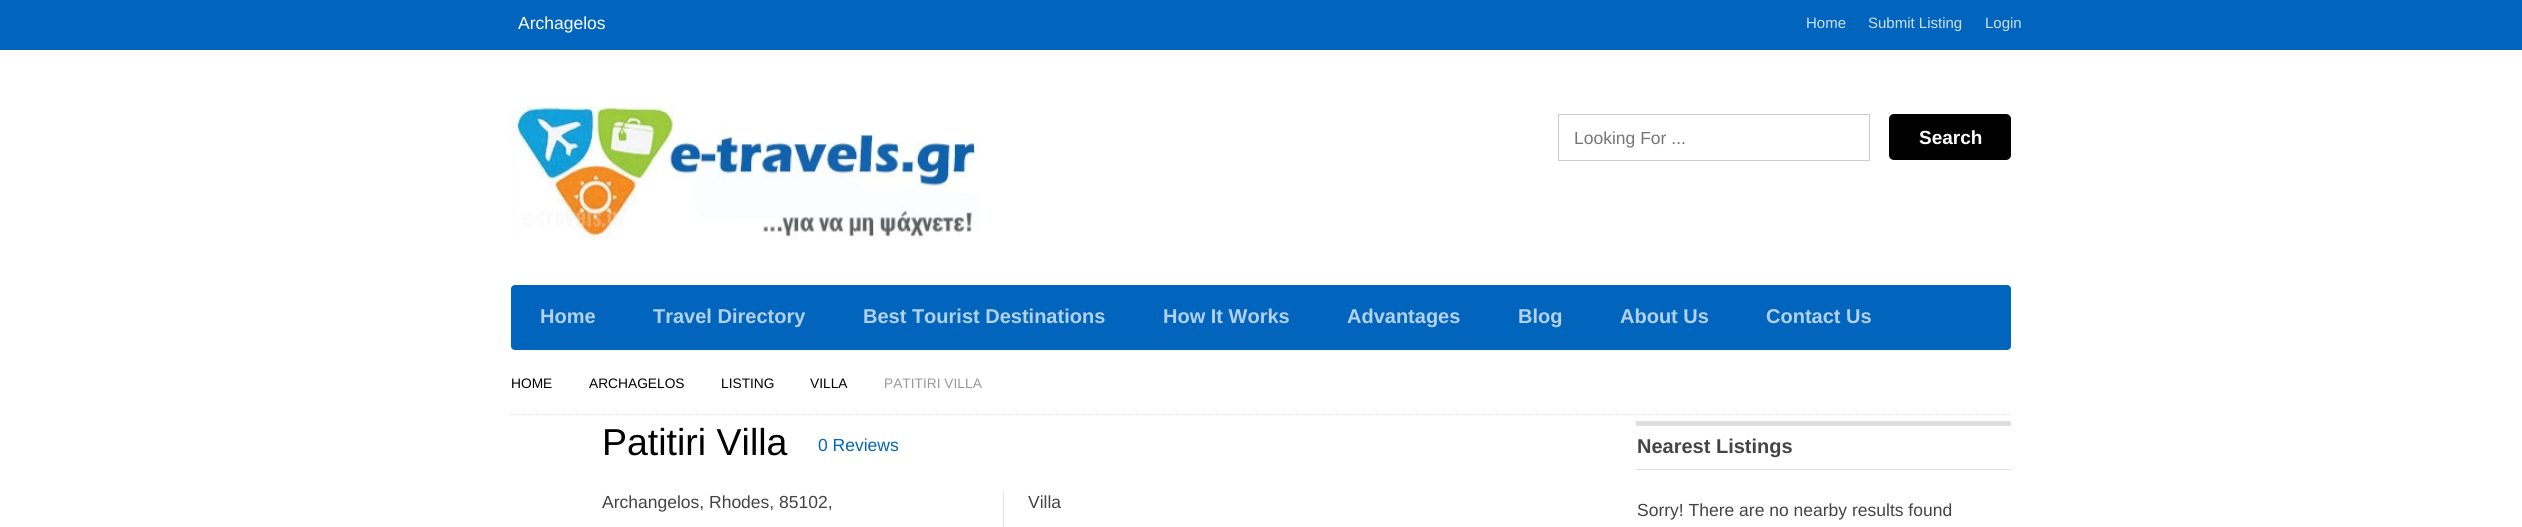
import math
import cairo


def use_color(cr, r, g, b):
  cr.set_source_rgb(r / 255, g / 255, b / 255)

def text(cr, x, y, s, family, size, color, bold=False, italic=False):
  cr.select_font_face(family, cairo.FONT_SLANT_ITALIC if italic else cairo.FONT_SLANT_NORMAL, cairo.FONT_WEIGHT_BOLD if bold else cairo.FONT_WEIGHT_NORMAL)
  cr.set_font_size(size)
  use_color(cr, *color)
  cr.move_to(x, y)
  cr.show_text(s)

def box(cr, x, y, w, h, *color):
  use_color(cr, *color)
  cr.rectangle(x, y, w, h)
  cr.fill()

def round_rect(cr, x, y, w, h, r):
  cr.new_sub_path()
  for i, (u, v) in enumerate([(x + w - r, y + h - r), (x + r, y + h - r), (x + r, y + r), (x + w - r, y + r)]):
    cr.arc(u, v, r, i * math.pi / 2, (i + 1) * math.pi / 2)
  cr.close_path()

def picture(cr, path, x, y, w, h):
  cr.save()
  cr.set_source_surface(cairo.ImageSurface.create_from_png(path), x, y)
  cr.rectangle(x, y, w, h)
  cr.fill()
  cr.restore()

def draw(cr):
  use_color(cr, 255, 255, 255)
  cr.paint()
  box(cr, 0, 0, 2522, 50, 1, 101, 189)
  picture(cr, "img_01.png", 511, 106, 469, 134)
  cr.rectangle(1558.5, 114.5, 311, 46)
  use_color(cr, 204, 204, 204)
  cr.set_line_width(1)
  cr.stroke()
  use_color(cr, 0, 0, 0)
  round_rect(cr, 1889, 114, 122, 46, 5)
  cr.fill()
  use_color(cr, 1, 101, 189)
  round_rect(cr, 511, 285, 1500, 65, 4)
  cr.fill()
  cr.new_path()
  cr.move_to(511, 414.5)
  cr.line_to(2011, 414.5)
  use_color(cr, 222, 222, 222)
  cr.set_line_width(1.2)
  cr.set_dash([1.25, 1.25])
  cr.stroke()
  box(cr, 1003, 491, 1, 36, 230, 230, 230)
  box(cr, 1636, 421, 375, 5, 222, 222, 222)
  box(cr, 1636, 469, 375, 1, 222, 222, 222)
  text(cr, 518, 29, "Archagelos", "Liberation Sans", 17.5, (255, 255, 255))
  text(cr, 1806, 28, "Home", "Liberation Sans", 15, (204, 224, 242))
  text(cr, 1868, 28, "Submit Listing", "Liberation Sans", 15, (204, 224, 242))
  text(cr, 1985, 28, "Login", "Liberation Sans", 15, (204, 224, 242))
  text(cr, 1574, 144, "Looking For ...", "Liberation Sans", 17.5, (117, 117, 117))
  text(cr, 1919, 144, "Search", "Liberation Sans", 19, (255, 255, 255), bold=True)
  text(cr, 540, 323, "Home", "Liberation Sans", 20, (179, 209, 235), bold=True)
  text(cr, 653, 323, "Travel Directory", "Liberation Sans", 20, (179, 209, 235), bold=True)
  text(cr, 863, 323, "Best Tourist Destinations", "Liberation Sans", 20, (179, 209, 235), bold=True)
  text(cr, 1163, 323, "How It Works", "Liberation Sans", 20, (179, 209, 235), bold=True)
  text(cr, 1347, 323, "Advantages", "Liberation Sans", 20, (179, 209, 235), bold=True)
  text(cr, 1518, 323, "Blog", "Liberation Sans", 20, (179, 209, 235), bold=True)
  text(cr, 1620, 323, "About Us", "Liberation Sans", 20, (179, 209, 235), bold=True)
  text(cr, 1766, 323, "Contact Us", "Liberation Sans", 20, (179, 209, 235), bold=True)
  text(cr, 511, 388, "HOME", "Liberation Sans", 13.75, (0, 0, 0))
  text(cr, 589, 388, "ARCHAGELOS", "Liberation Sans", 13.75, (0, 0, 0))
  text(cr, 721, 388, "LISTING", "Liberation Sans", 13.75, (0, 0, 0))
  text(cr, 810, 388, "VILLA", "Liberation Sans", 13.75, (0, 0, 0))
  text(cr, 884, 388, "PATITIRI VILLA", "Liberation Sans", 13.75, (153, 153, 153))
  text(cr, 602, 455, "Patitiri Villa", "Liberation Sans", 37.5, (0, 0, 0))
  text(cr, 818, 451, "0 Reviews", "Liberation Sans", 17.5, (1, 101, 189))
  text(cr, 602, 508, "Archangelos, Rhodes, 85102,", "Liberation Sans", 17.5, (68, 68, 68))
  text(cr, 1028, 508, "Villa", "Liberation Sans", 17.5, (68, 68, 68))
  text(cr, 1637, 453, "Nearest Listings", "Liberation Sans", 20, (68, 68, 68), bold=True)
  text(cr, 1637, 516, "Sorry! There are no nearby results found", "Liberation Sans", 17.5, (68, 68, 68))


surface = cairo.ImageSurface(cairo.FORMAT_RGB24, 2522, 527)
cr = cairo.Context(surface)
options = cairo.FontOptions()
options.set_hint_metrics(cairo.HINT_METRICS_OFF)
options.set_hint_style(cairo.HINT_STYLE_NONE)
cr.set_font_options(options)
cr.set_miter_limit(4)
draw(cr)
surface.write_to_png("out.png")
